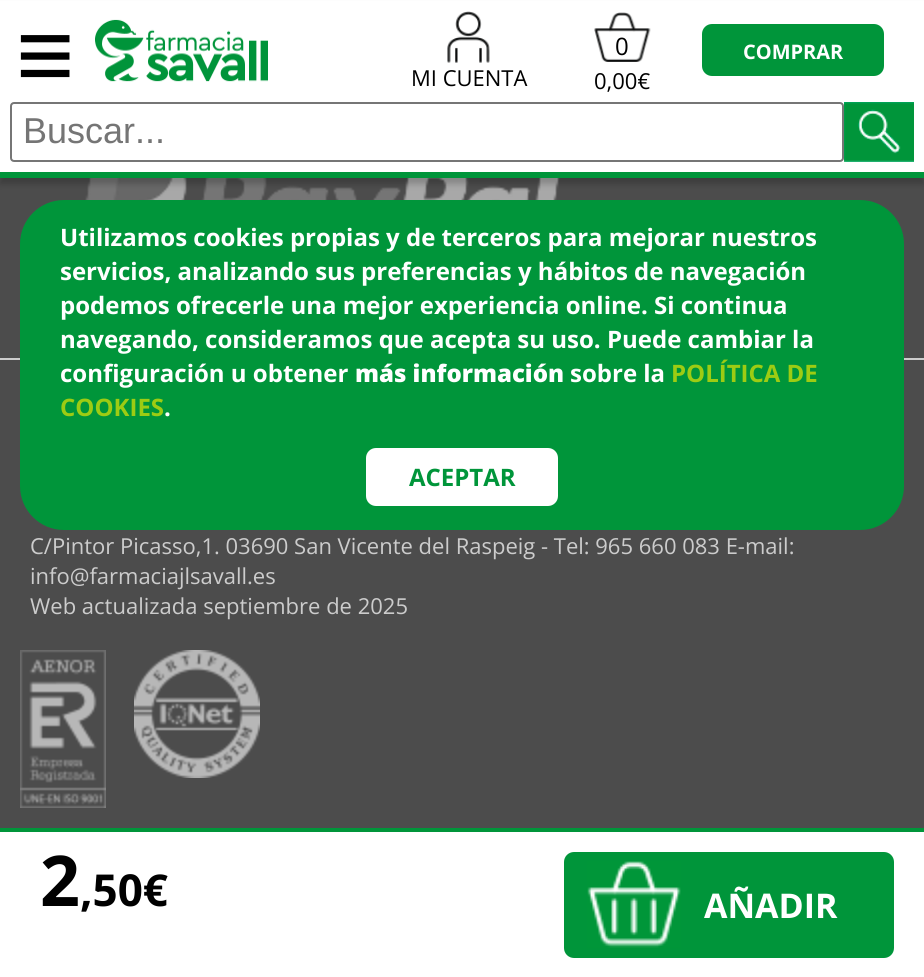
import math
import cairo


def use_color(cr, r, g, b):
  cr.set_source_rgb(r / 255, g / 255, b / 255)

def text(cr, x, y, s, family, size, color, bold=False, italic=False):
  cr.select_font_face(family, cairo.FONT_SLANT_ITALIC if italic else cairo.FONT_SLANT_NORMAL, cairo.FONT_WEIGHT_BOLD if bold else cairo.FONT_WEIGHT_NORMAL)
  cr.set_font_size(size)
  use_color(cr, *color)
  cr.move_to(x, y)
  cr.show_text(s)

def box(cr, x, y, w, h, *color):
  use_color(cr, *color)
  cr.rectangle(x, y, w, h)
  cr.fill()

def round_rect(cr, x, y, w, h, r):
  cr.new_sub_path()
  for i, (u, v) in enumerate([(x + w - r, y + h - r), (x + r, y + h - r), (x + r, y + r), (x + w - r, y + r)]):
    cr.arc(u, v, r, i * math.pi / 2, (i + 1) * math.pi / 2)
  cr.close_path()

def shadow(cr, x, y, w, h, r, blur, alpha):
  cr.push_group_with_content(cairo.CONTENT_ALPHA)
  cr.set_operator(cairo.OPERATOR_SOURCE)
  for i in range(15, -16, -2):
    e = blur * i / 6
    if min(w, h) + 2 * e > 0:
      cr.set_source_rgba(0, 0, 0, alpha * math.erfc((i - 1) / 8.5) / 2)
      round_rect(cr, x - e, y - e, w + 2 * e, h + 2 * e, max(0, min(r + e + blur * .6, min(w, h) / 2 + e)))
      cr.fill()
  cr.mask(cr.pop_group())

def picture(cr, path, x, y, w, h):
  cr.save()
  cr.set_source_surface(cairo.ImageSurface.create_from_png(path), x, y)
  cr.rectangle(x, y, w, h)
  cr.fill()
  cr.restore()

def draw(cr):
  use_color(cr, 255, 255, 255)
  cr.paint()
  box(cr, 0, 178, 924, 650, 76, 76, 76)
  picture(cr, "img_05.png", 85, 178, 475, 22)
  use_color(cr, 0, 0, 0)
  shadow(cr, 0, 6, 924, 178, 0, 3, 0.2)
  box(cr, 0, 1, 924, 171, 255, 255, 255)
  box(cr, 0, 172, 924, 6, 0, 149, 58)
  picture(cr, "img_01.png", 95, 19, 173, 63)
  picture(cr, "img_02.png", 594, 12, 57, 50)
  round_rect(cr, 702, 24, 182, 52, 10)
  cr.fill()
  picture(cr, "img_03.png", 447, 11, 43, 52)
  round_rect(cr, 11, 103, 832, 58, 3)
  use_color(cr, 118, 118, 118)
  cr.stroke()
  picture(cr, "img_04.png", 844, 102, 70, 60)
  box(cr, 0, 358, 924, 2, 204, 204, 204)
  use_color(cr, 0, 149, 58)
  round_rect(cr, 20, 200, 884, 330, 44)
  cr.fill()
  use_color(cr, 255, 255, 255)
  round_rect(cr, 366, 448, 192, 58, 10)
  cr.fill()
  picture(cr, "img_06.png", 20, 650, 86, 158)
  picture(cr, "img_07.png", 134, 650, 126, 128)
  box(cr, 0, 828, 924, 4, 0, 149, 58)
  round_rect(cr, 564, 852, 330, 106, 10)
  cr.fill()
  picture(cr, "img_08.png", 587, 861, 94, 87)
  text(cr, 16, 89, "≡", "Liberation Sans", 100, (0, 0, 0))
  text(cr, 615, 55, "0", "Open Sans", 24, (0, 0, 0))
  text(cr, 594, 89, "0,00€", "Open Sans", 22, (0, 0, 0))
  text(cr, 743, 59, "COMPRAR", "Open Sans", 20, (255, 255, 255), bold=True)
  text(cr, 411, 86, "MI CUENTA", "Open Sans", 22, (0, 0, 0))
  text(cr, 23, 143, "Buscar...", "Liberation Sans", 36, (117, 117, 117))
  text(cr, 60, 246, "Utilizamos cookies propias y de terceros para mejorar nuestros", "Open Sans", 24, (255, 255, 255), bold=True)
  text(cr, 60, 280, "servicios, analizando sus preferencias y hábitos de navegación", "Open Sans", 24, (255, 255, 255), bold=True)
  text(cr, 60, 314, "podemos ofrecerle una mejor experiencia online. Si continua", "Open Sans", 24, (255, 255, 255), bold=True)
  text(cr, 60, 348, "navegando, consideramos que acepta su uso. Puede cambiar la", "Open Sans", 24, (255, 255, 255), bold=True)
  text(cr, 60, 382, "configuración u obtener", "Open Sans", 24, (255, 255, 255), bold=True)
  text(cr, 355, 382, "más información", "Open Sans ExtraBold", 24, (255, 255, 255))
  text(cr, 570, 382, "sobre la", "Open Sans", 24, (255, 255, 255), bold=True)
  text(cr, 671, 382, "POLÍTICA DE", "Open Sans", 24, (157, 204, 19), bold=True)
  text(cr, 60, 416, "COOKIES", "Open Sans", 24, (157, 204, 19), bold=True)
  text(cr, 164, 416, ".", "Open Sans", 24, (255, 255, 255), bold=True)
  text(cr, 409, 486, "ACEPTAR", "Open Sans", 24, (0, 149, 58), bold=True)
  text(cr, 30, 554, "C/Pintor Picasso,1. 03690 San Vicente del Raspeig - Tel: 965 660 083 E-mail:", "Open Sans", 22, (204, 204, 204))
  text(cr, 30, 584, "info@farmaciajlsavall.es", "Open Sans", 22, (204, 204, 204))
  text(cr, 30, 614, "Web actualizada septiembre de 2025", "Open Sans", 22, (204, 204, 204))
  text(cr, 40, 906, "2", "Open Sans", 70, (0, 0, 0), bold=True)
  text(cr, 80, 906, ",50€", "Open Sans", 44, (0, 0, 0), bold=True)
  text(cr, 704, 918, "AÑADIR", "Open Sans", 34, (255, 255, 255), bold=True)


surface = cairo.ImageSurface(cairo.FORMAT_RGB24, 924, 977)
cr = cairo.Context(surface)
options = cairo.FontOptions()
options.set_hint_metrics(cairo.HINT_METRICS_OFF)
options.set_hint_style(cairo.HINT_STYLE_NONE)
cr.set_font_options(options)
cr.set_miter_limit(4)
draw(cr)
surface.write_to_png("out.png")
